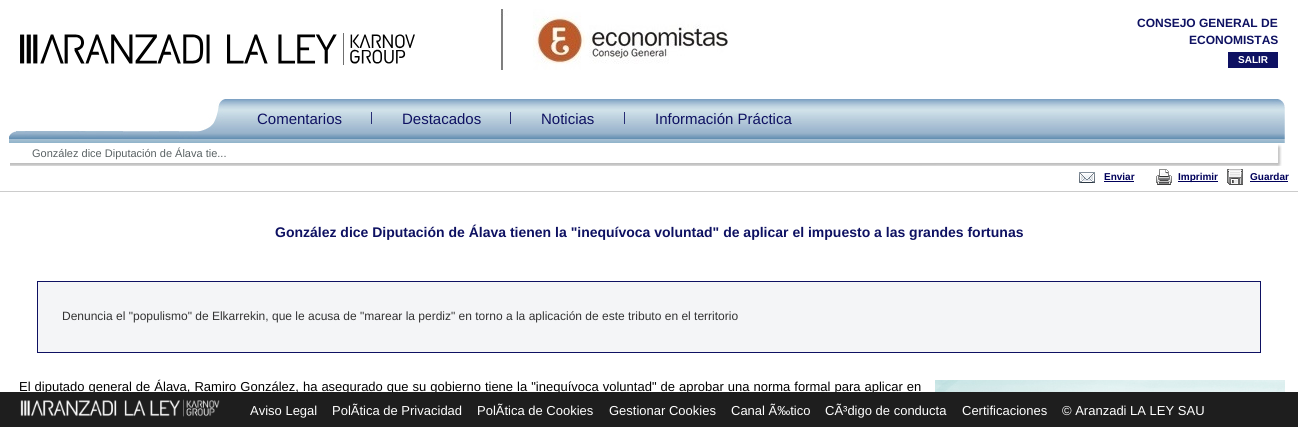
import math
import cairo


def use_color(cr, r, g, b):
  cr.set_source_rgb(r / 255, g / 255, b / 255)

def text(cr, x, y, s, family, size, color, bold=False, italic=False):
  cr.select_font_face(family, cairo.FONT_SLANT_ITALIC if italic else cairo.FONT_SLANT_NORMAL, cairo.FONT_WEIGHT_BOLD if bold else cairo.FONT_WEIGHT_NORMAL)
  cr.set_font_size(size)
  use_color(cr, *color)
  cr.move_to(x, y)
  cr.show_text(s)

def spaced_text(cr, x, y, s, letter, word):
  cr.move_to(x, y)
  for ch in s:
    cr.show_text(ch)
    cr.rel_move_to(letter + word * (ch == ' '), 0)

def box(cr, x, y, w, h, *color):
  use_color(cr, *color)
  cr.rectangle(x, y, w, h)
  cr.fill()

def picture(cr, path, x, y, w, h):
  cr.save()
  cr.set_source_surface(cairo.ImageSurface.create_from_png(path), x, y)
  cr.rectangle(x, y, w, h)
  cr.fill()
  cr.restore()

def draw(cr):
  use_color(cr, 255, 255, 255)
  cr.paint()
  box(cr, 0, 191, 1298, 1, 204, 204, 204)
  picture(cr, "img_01.png", 20, 33, 395, 32)
  picture(cr, "img_02.png", 501, 9, 227, 61)
  box(cr, 1228, 52, 50, 16, 14, 17, 98)
  picture(cr, "img_03.png", 9, 99, 218, 44)
  picture(cr, "img_04.png", 227, 99, 1058, 44)
  box(cr, 371, 112, 1, 12, 39, 45, 117)
  box(cr, 510, 112, 1, 12, 39, 45, 117)
  box(cr, 624, 112, 1, 12, 39, 45, 117)
  picture(cr, "img_05.png", 10, 144, 1272, 22)
  picture(cr, "img_06.png", 1079, 172, 16, 11)
  box(cr, 1104, 181, 30, 1, 0, 0, 90)
  picture(cr, "img_07.png", 1156, 169, 16, 16)
  box(cr, 1178, 181, 40, 1, 0, 0, 90)
  picture(cr, "img_08.png", 1227, 169, 16, 16)
  box(cr, 1250, 181, 38, 1, 0, 0, 90)
  use_color(cr, 244, 245, 247)
  cr.rectangle(37.5, 281.5, 1223, 71)
  cr.fill_preserve()
  use_color(cr, 14, 17, 98)
  cr.set_line_width(1)
  cr.stroke()
  picture(cr, "img_09.png", 935, 380, 350, 12)
  text(cr, 1137, 27, "CONSEJO GENERAL DE", "Liberation Sans", 12, (14, 17, 98), bold=True)
  text(cr, 1189, 44, "ECONOMISTAS", "Liberation Sans", 12, (14, 17, 98), bold=True)
  text(cr, 1238, 63, "SALIR", "Liberation Sans", 10, (255, 255, 255), bold=True)
  text(cr, 257, 124, "Comentarios", "Liberation Sans", 15, (14, 17, 98))
  text(cr, 402, 124, "Destacados", "Liberation Sans", 15, (14, 17, 98))
  text(cr, 541, 124, "Noticias", "Liberation Sans", 15, (14, 17, 98))
  text(cr, 655, 124, "Información Práctica", "Liberation Sans", 15, (14, 17, 98))
  text(cr, 32, 157, "González dice Diputación de Álava tie...", "Liberation Sans", 11, (89, 97, 99))
  text(cr, 1104, 180, "Enviar", "Liberation Sans", 10, (0, 0, 90), bold=True)
  text(cr, 1178, 180, "Imprimir", "Liberation Sans", 10, (0, 0, 90), bold=True)
  text(cr, 1250, 180, "Guardar", "Liberation Sans", 10, (0, 0, 90), bold=True)
  text(cr, 275, 237, "González dice Diputación de Álava tienen la \"inequívoca voluntad\" de aplicar el impuesto a las grandes fortunas", "Liberation Sans", 14, (14, 17, 98), bold=True)
  text(cr, 62, 320, "Denuncia el \"populismo\" de Elkarrekin, que le acusa de \"marear la perdiz\" en torno a la aplicación de este tributo en el territorio", "Liberation Sans", 12, (51, 51, 51))
  cr.set_font_size(13)
  use_color(cr, 0, 0, 0)
  spaced_text(cr, 19, 391, "El diputado general de Álava, Ramiro González, ha asegurado que su gobierno tiene la \"inequívoca voluntad\" de aprobar una norma formal para aplicar en", 0, 0.4)
  box(cr, 0, 392, 1298, 35, 30, 30, 30)
  picture(cr, "img_10.png", 20, 399, 200, 18)
  text(cr, 250, 415, "Aviso Legal", "Liberation Sans", 13, (255, 255, 255))
  text(cr, 332, 415, "PolÃtica de Privacidad", "Liberation Sans", 13, (255, 255, 255))
  text(cr, 477, 415, "PolÃtica de Cookies", "Liberation Sans", 13, (255, 255, 255))
  text(cr, 609, 415, "Gestionar Cookies", "Liberation Sans", 13, (255, 255, 255))
  text(cr, 731, 415, "Canal Ã‰tico", "Liberation Sans", 13, (255, 255, 255))
  text(cr, 825, 415, "CÃ³digo de conducta", "Liberation Sans", 13, (255, 255, 255))
  text(cr, 962, 415, "Certificaciones", "Liberation Sans", 13, (255, 255, 255))
  text(cr, 1062, 415, "© Aranzadi LA LEY SAU", "Liberation Sans", 13, (255, 255, 255))


surface = cairo.ImageSurface(cairo.FORMAT_RGB24, 1298, 427)
cr = cairo.Context(surface)
options = cairo.FontOptions()
options.set_hint_metrics(cairo.HINT_METRICS_OFF)
options.set_hint_style(cairo.HINT_STYLE_NONE)
cr.set_font_options(options)
cr.set_miter_limit(4)
draw(cr)
surface.write_to_png("out.png")
